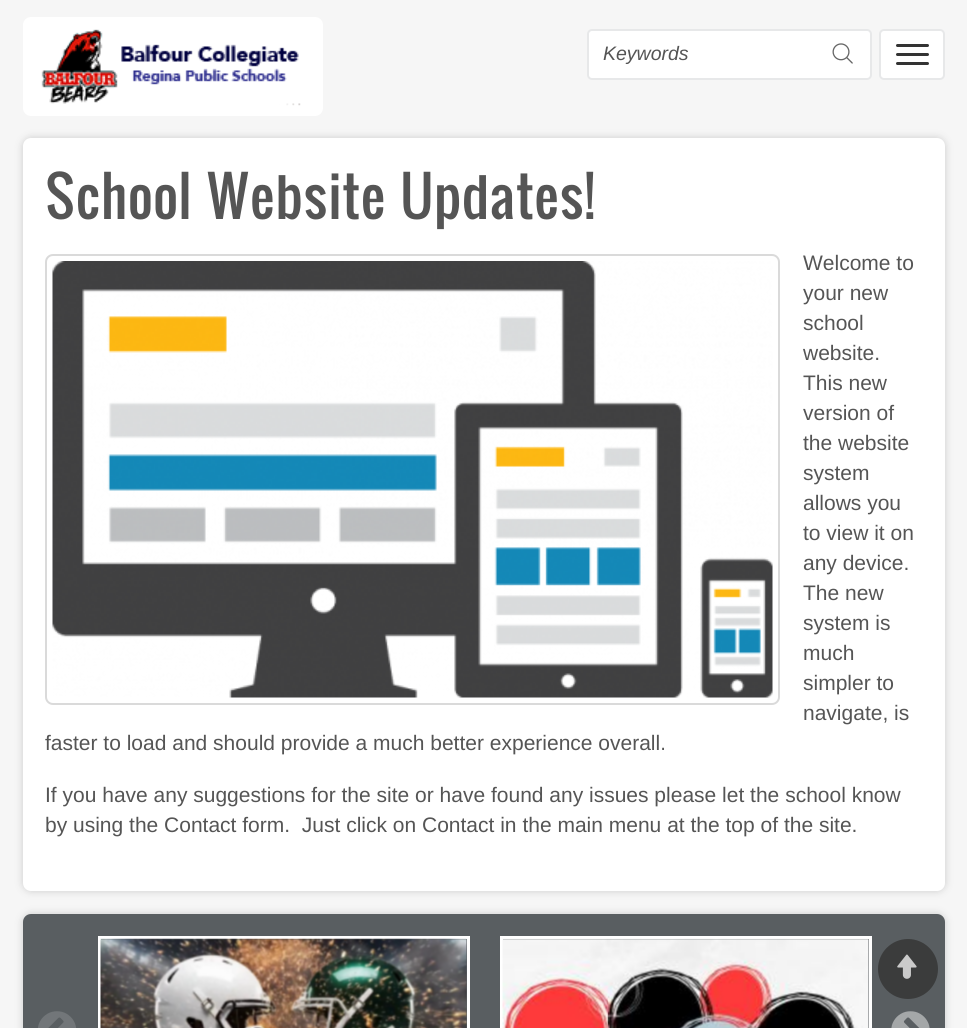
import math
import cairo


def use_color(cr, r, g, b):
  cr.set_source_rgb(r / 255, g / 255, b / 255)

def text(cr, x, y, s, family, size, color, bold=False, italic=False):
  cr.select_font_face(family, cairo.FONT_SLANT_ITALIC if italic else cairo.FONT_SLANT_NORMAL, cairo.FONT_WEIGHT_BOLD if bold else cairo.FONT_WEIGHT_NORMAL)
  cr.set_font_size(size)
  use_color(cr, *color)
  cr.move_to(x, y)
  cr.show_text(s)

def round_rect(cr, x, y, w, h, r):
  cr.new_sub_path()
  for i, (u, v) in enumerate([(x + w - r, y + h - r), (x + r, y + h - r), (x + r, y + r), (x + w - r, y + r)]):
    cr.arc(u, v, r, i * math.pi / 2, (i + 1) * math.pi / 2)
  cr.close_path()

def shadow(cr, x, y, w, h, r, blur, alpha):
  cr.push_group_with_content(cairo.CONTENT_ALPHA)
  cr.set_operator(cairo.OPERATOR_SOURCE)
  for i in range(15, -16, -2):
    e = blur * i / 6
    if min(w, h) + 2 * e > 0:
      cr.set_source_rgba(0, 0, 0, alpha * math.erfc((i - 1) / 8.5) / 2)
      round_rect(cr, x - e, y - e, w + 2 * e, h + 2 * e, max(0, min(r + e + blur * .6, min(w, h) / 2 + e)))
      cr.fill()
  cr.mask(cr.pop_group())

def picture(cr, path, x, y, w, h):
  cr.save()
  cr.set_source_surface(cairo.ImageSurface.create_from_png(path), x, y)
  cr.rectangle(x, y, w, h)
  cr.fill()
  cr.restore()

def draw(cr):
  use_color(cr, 246, 246, 246)
  cr.paint()
  use_color(cr, 255, 255, 255)
  round_rect(cr, 23, 17, 300, 99, 8)
  cr.fill()
  picture(cr, "img_01.png", 41, 29, 260, 77)
  round_rect(cr, 588, 30, 283, 49, 4)
  cr.fill_preserve()
  use_color(cr, 231, 232, 233)
  cr.stroke()
  picture(cr, "img_02.png", 832, 43, 21, 21)
  use_color(cr, 255, 255, 255)
  round_rect(cr, 880, 30, 64, 49, 4)
  cr.fill_preserve()
  use_color(cr, 231, 232, 233)
  cr.stroke()
  use_color(cr, 51, 51, 51)
  round_rect(cr, 896, 44, 33, 3, 1.5)
  cr.fill()
  round_rect(cr, 896, 53, 33, 3, 1.5)
  cr.fill()
  round_rect(cr, 896, 62, 33, 3, 1.5)
  cr.fill()
  use_color(cr, 204, 204, 204)
  shadow(cr, 23, 138, 922, 753, 8, 4, 1)
  use_color(cr, 255, 255, 255)
  round_rect(cr, 23, 138, 922, 753, 8)
  cr.fill()
  round_rect(cr, 46, 255, 733, 449, 7)
  use_color(cr, 218, 218, 218)
  cr.stroke()
  picture(cr, "img_03.png", 52, 261, 721, 437)
  use_color(cr, 204, 204, 204)
  shadow(cr, 23, 914, 922, 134, 8, 4, 1)
  use_color(cr, 89, 94, 97)
  round_rect(cr, 23, 914, 922, 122, 8)
  cr.fill()
  picture(cr, "img_04.png", 38, 1011, 38, 17)
  cr.rectangle(99.5, 937.5, 369, 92)
  use_color(cr, 255, 255, 255)
  cr.set_line_width(3)
  cr.stroke()
  picture(cr, "img_05.png", 100, 938, 367, 90)
  cr.rectangle(501.5, 937.5, 369, 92)
  cr.stroke()
  picture(cr, "img_06.png", 502, 938, 367, 90)
  picture(cr, "img_07.png", 891, 1011, 39, 17)
  use_color(cr, 59, 60, 60)
  cr.arc(908, 969, 30, 0, 2 * math.pi)
  cr.fill()
  picture(cr, "img_08.png", 897, 954, 20, 25)
  text(cr, 603, 60, "Keywords", "Liberation Sans", 19.5, (85, 85, 85), italic=True)
  text(cr, 45, 219, "School Website Updates!", "Oswald", 54, (85, 85, 85))
  text(cr, 803, 270, "Welcome to", "Liberation Sans", 21, (85, 85, 85))
  text(cr, 803, 300, "your new", "Liberation Sans", 21, (85, 85, 85))
  text(cr, 803, 330, "school", "Liberation Sans", 21, (85, 85, 85))
  text(cr, 803, 360, "website.", "Liberation Sans", 21, (85, 85, 85))
  text(cr, 803, 390, "This new", "Liberation Sans", 21, (85, 85, 85))
  text(cr, 803, 420, "version of", "Liberation Sans", 21, (85, 85, 85))
  text(cr, 803, 450, "the website", "Liberation Sans", 21, (85, 85, 85))
  text(cr, 803, 480, "system", "Liberation Sans", 21, (85, 85, 85))
  text(cr, 803, 510, "allows you", "Liberation Sans", 21, (85, 85, 85))
  text(cr, 803, 540, "to view it on", "Liberation Sans", 21, (85, 85, 85))
  text(cr, 803, 570, "any device.", "Liberation Sans", 21, (85, 85, 85))
  text(cr, 803, 600, "The new", "Liberation Sans", 21, (85, 85, 85))
  text(cr, 803, 630, "system is", "Liberation Sans", 21, (85, 85, 85))
  text(cr, 803, 660, "much", "Liberation Sans", 21, (85, 85, 85))
  text(cr, 803, 690, "simpler to", "Liberation Sans", 21, (85, 85, 85))
  text(cr, 803, 720, "navigate, is", "Liberation Sans", 21, (85, 85, 85))
  text(cr, 45, 750, "faster to load and should provide a much better experience overall.", "Liberation Sans", 21, (85, 85, 85))
  text(cr, 45, 802, "If you have any suggestions for the site or have found any issues please let the school know", "Liberation Sans", 21, (85, 85, 85))
  text(cr, 45, 832, "by using the Contact form.  Just click on Contact in the main menu at the top of the site.", "Liberation Sans", 21, (85, 85, 85))


surface = cairo.ImageSurface(cairo.FORMAT_RGB24, 967, 1028)
cr = cairo.Context(surface)
options = cairo.FontOptions()
options.set_hint_metrics(cairo.HINT_METRICS_OFF)
options.set_hint_style(cairo.HINT_STYLE_NONE)
cr.set_font_options(options)
cr.set_miter_limit(4)
draw(cr)
surface.write_to_png("out.png")
